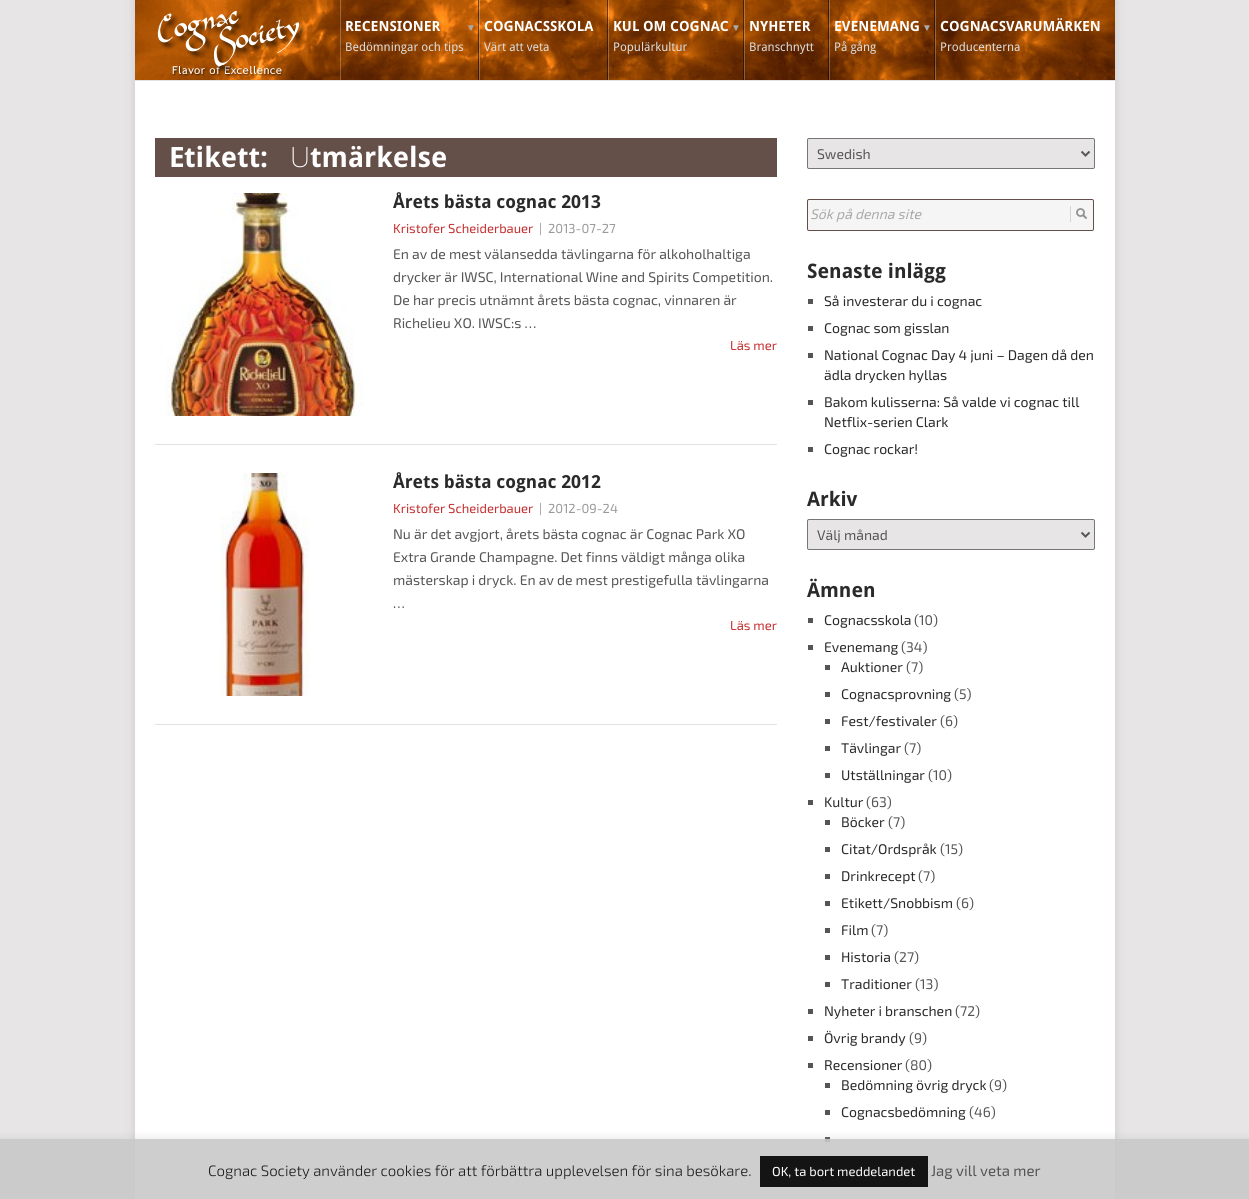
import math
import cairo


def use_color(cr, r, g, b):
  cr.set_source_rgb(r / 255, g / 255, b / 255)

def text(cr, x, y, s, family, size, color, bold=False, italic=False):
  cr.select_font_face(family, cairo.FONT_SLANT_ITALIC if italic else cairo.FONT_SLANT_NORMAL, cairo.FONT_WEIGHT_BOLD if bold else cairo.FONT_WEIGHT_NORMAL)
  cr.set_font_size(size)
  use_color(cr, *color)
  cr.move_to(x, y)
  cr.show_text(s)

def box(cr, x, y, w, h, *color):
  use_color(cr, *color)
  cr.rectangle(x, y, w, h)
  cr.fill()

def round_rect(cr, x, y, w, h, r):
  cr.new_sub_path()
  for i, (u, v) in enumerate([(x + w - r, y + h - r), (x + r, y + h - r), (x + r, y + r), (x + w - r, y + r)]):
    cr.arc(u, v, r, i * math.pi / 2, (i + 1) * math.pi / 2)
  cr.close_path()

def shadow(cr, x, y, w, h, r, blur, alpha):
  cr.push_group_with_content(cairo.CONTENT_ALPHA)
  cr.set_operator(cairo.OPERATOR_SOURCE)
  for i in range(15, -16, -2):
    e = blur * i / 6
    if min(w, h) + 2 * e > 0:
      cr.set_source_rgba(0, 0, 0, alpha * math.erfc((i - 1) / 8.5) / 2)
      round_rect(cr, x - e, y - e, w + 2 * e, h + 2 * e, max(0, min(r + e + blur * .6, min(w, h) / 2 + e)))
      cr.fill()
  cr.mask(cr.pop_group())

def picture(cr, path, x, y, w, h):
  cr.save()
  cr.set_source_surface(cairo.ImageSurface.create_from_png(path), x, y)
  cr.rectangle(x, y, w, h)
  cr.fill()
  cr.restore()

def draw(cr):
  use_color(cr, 231, 229, 230)
  cr.paint()
  use_color(cr, 50, 50, 50)
  shadow(cr, 135, -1, 980, 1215, 0, 5, 0.17)
  box(cr, 135, 81, 980, 1118, 255, 255, 255)
  picture(cr, "img_01.png", 135, 0, 980, 80)
  picture(cr, "img_02.png", 157, 11, 150, 65)
  cr.set_source_rgba(0, 0, 0, 0.5)
  cr.rectangle(478, 0, 1, 81)
  cr.fill()
  cr.set_source_rgba(1, 1, 1, 0.25)
  cr.rectangle(340, 0, 1, 81)
  cr.fill()
  cr.set_source_rgba(0, 0, 0, 0.5)
  cr.rectangle(607, 0, 1, 81)
  cr.fill()
  cr.set_source_rgba(1, 1, 1, 0.25)
  cr.rectangle(479, 0, 1, 81)
  cr.fill()
  cr.set_source_rgba(0, 0, 0, 0.5)
  cr.rectangle(743, 0, 1, 81)
  cr.fill()
  cr.set_source_rgba(1, 1, 1, 0.25)
  cr.rectangle(608, 0, 1, 81)
  cr.fill()
  cr.set_source_rgba(0, 0, 0, 0.5)
  cr.rectangle(828, 0, 1, 81)
  cr.fill()
  cr.set_source_rgba(1, 1, 1, 0.25)
  cr.rectangle(744, 0, 1, 81)
  cr.fill()
  cr.set_source_rgba(0, 0, 0, 0.5)
  cr.rectangle(934, 0, 1, 81)
  cr.fill()
  cr.set_source_rgba(1, 1, 1, 0.25)
  cr.rectangle(829, 0, 1, 81)
  cr.fill()
  cr.rectangle(935, 0, 1, 81)
  cr.fill()
  box(cr, 135, 80, 980, 1, 226, 226, 226)
  box(cr, 155, 138, 622, 39, 100, 79, 73)
  box(cr, 155, 444, 622, 1, 226, 226, 226)
  picture(cr, "img_03.png", 159, 193, 205, 223)
  box(cr, 155, 724, 622, 1, 226, 226, 226)
  picture(cr, "img_04.png", 220, 473, 90, 223)
  use_color(cr, 231, 229, 230)
  round_rect(cr, 807.5, 138.5, 287, 30, 1.5)
  cr.fill_preserve()
  use_color(cr, 118, 118, 118)
  cr.set_line_width(1)
  cr.stroke()
  cr.new_path()
  cr.move_to(1081.5, 151.5)
  cr.line_to(1085.5, 155.5)
  cr.line_to(1089.5, 151.5)
  use_color(cr, 85, 85, 85)
  cr.set_line_width(2)
  cr.stroke()
  use_color(cr, 245, 245, 245)
  round_rect(cr, 807.5, 199.5, 286, 31, 1.5)
  cr.fill_preserve()
  use_color(cr, 99, 78, 72)
  cr.set_line_width(1)
  cr.stroke()
  picture(cr, "img_05.png", 1070, 206, 17, 16)
  box(cr, 808, 299, 5, 5, 85, 85, 85)
  box(cr, 808, 326, 5, 5, 85, 85, 85)
  box(cr, 808, 353, 5, 5, 85, 85, 85)
  box(cr, 808, 400, 5, 5, 85, 85, 85)
  box(cr, 808, 447, 5, 5, 85, 85, 85)
  use_color(cr, 231, 229, 230)
  round_rect(cr, 807.5, 519.5, 287, 30, 1.5)
  cr.fill_preserve()
  use_color(cr, 118, 118, 118)
  cr.stroke()
  cr.new_path()
  cr.move_to(1081.5, 532.5)
  cr.line_to(1085.5, 536.5)
  cr.line_to(1089.5, 532.5)
  use_color(cr, 85, 85, 85)
  cr.set_line_width(2)
  cr.stroke()
  box(cr, 808, 618, 5, 5, 85, 85, 85)
  box(cr, 808, 645, 5, 5, 85, 85, 85)
  box(cr, 825, 665, 5, 5, 85, 85, 85)
  box(cr, 825, 692, 5, 5, 85, 85, 85)
  box(cr, 825, 719, 5, 5, 85, 85, 85)
  box(cr, 825, 746, 5, 5, 85, 85, 85)
  box(cr, 825, 773, 5, 5, 85, 85, 85)
  box(cr, 808, 800, 5, 5, 85, 85, 85)
  box(cr, 825, 820, 5, 5, 85, 85, 85)
  box(cr, 825, 847, 5, 5, 85, 85, 85)
  box(cr, 825, 874, 5, 5, 85, 85, 85)
  box(cr, 825, 901, 5, 5, 85, 85, 85)
  box(cr, 825, 928, 5, 5, 85, 85, 85)
  box(cr, 825, 955, 5, 5, 85, 85, 85)
  box(cr, 825, 982, 5, 5, 85, 85, 85)
  box(cr, 808, 1009, 5, 5, 85, 85, 85)
  box(cr, 808, 1036, 5, 5, 85, 85, 85)
  box(cr, 808, 1063, 5, 5, 85, 85, 85)
  box(cr, 825, 1083, 5, 5, 85, 85, 85)
  box(cr, 825, 1110, 5, 5, 85, 85, 85)
  box(cr, 825, 1137, 5, 5, 85, 85, 85)
  cr.save()
  cr.rectangle(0, 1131, 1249, 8)
  cr.clip()
  use_color(cr, 172, 171, 171)
  shadow(cr, 0, 1138, 1249, 60, 0, 5, 0.27)
  cr.restore()
  cr.set_source_rgba(0.788, 0.788, 0.788, 0.9)
  cr.rectangle(0, 1139, 1249, 60)
  cr.fill()
  cr.set_source_rgba(0, 0, 0, 0.9)
  cr.rectangle(760, 1156, 168, 31)
  cr.fill()
  text(cr, 345, 31, "RECENSIONER", "Droid Sans", 14, (255, 255, 255), bold=True)
  text(cr, 466, 31, "▼", "Liberation Sans", 10, (170, 170, 170), bold=True)
  text(cr, 345, 51, "Bedömningar och tips", "Droid Sans", 12, (221, 221, 221))
  text(cr, 484, 31, "COGNACSSKOLA", "Droid Sans", 14, (255, 255, 255), bold=True)
  text(cr, 484, 51, "Värt att veta", "Droid Sans", 12, (221, 221, 221))
  text(cr, 613, 31, "KUL OM COGNAC", "Droid Sans", 14, (255, 255, 255), bold=True)
  text(cr, 731, 31, "▼", "Liberation Sans", 10, (170, 170, 170), bold=True)
  text(cr, 613, 51, "Populärkultur", "Droid Sans", 12, (221, 221, 221))
  text(cr, 749, 31, "NYHETER", "Droid Sans", 14, (255, 255, 255), bold=True)
  text(cr, 749, 51, "Branschnytt", "Droid Sans", 12, (221, 221, 221))
  text(cr, 834, 31, "EVENEMANG", "Droid Sans", 14, (255, 255, 255), bold=True)
  text(cr, 922, 31, "▼", "Liberation Sans", 10, (170, 170, 170), bold=True)
  text(cr, 834, 51, "På gång", "Droid Sans", 12, (221, 221, 221))
  text(cr, 940, 31, "COGNACSVARUMÄRKEN", "Droid Sans", 14, (255, 255, 255), bold=True)
  text(cr, 940, 51, "Producenterna", "Droid Sans", 12, (221, 221, 221))
  text(cr, 169, 167, "E", "Noto Sans", 28, (255, 255, 255), bold=True)
  text(cr, 184, 167, "tikett:", "Droid Sans", 28, (255, 255, 255), bold=True)
  text(cr, 290, 167, "U", "Noto Sans ExtraLight", 28, (255, 255, 255))
  text(cr, 310, 167, "tmärkelse", "Droid Sans", 28, (255, 255, 255), bold=True)
  text(cr, 393, 208, "Årets bästa cognac 2013", "Droid Sans", 18, (42, 42, 42), bold=True)
  text(cr, 393, 233, "Kristofer Scheiderbauer", "Exo 2", 13, (195, 45, 46))
  text(cr, 539, 233, "|", "Exo 2", 13, (153, 153, 153))
  text(cr, 548, 233, "2013-07-27", "Exo 2", 13, (153, 153, 153))
  text(cr, 393, 259, "En av de mest välansedda tävlingarna för alkoholhaltiga", "Exo 2", 14, (85, 85, 85))
  text(cr, 393, 282, "drycker är IWSC, International Wine and Spirits Competition.", "Exo 2", 14, (85, 85, 85))
  text(cr, 393, 305, "De har precis utnämnt årets bästa cognac, vinnaren är", "Exo 2", 14, (85, 85, 85))
  text(cr, 393, 328, "Richelieu XO. IWSC:s …", "Exo 2", 14, (85, 85, 85))
  text(cr, 730, 350, "Läs mer", "Exo 2", 13, (195, 45, 46))
  text(cr, 393, 488, "Årets bästa cognac 2012", "Droid Sans", 18, (42, 42, 42), bold=True)
  text(cr, 393, 513, "Kristofer Scheiderbauer", "Exo 2", 13, (195, 45, 46))
  text(cr, 539, 513, "|", "Exo 2", 13, (153, 153, 153))
  text(cr, 548, 513, "2012-09-24", "Exo 2", 13, (153, 153, 153))
  text(cr, 393, 539, "Nu är det avgjort, årets bästa cognac är Cognac Park XO", "Exo 2", 14, (85, 85, 85))
  text(cr, 393, 562, "Extra Grande Champagne. Det finns väldigt många olika", "Exo 2", 14, (85, 85, 85))
  text(cr, 393, 585, "mästerskap i dryck. En av de mest prestigefulla tävlingarna", "Exo 2", 14, (85, 85, 85))
  text(cr, 393, 608, "…", "Exo 2", 14, (85, 85, 85))
  text(cr, 730, 630, "Läs mer", "Exo 2", 13, (195, 45, 46))
  text(cr, 817, 159, "Swedish", "Exo 2", 14, (85, 85, 85))
  text(cr, 810, 219, "Sök på denna site", "Exo 2", 14, (170, 170, 170), italic=True)
  text(cr, 807, 278, "Senaste inlägg", "Droid Sans", 20, (42, 42, 42), bold=True)
  text(cr, 824, 306, "Så investerar du i cognac", "Exo 2", 14, (42, 42, 42))
  text(cr, 824, 333, "Cognac som gisslan", "Exo 2", 14, (42, 42, 42))
  text(cr, 824, 360, "National Cognac Day 4 juni – Dagen då den", "Exo 2", 14, (42, 42, 42))
  text(cr, 824, 380, "ädla drycken hyllas", "Exo 2", 14, (42, 42, 42))
  text(cr, 824, 407, "Bakom kulisserna: Så valde vi cognac till", "Exo 2", 14, (42, 42, 42))
  text(cr, 824, 427, "Netflix-serien Clark", "Exo 2", 14, (42, 42, 42))
  text(cr, 824, 454, "Cognac rockar!", "Exo 2", 14, (42, 42, 42))
  text(cr, 807, 506, "Arkiv", "Droid Sans", 20, (42, 42, 42), bold=True)
  text(cr, 817, 540, "Välj månad", "Exo 2", 14, (85, 85, 85))
  text(cr, 807, 597, "Ämnen", "Droid Sans", 20, (42, 42, 42), bold=True)
  text(cr, 824, 625, "Cognacsskola", "Exo 2", 14, (42, 42, 42))
  text(cr, 914, 625, "(10)", "Exo 2", 14, (85, 85, 85))
  text(cr, 824, 652, "Evenemang", "Exo 2", 14, (42, 42, 42))
  text(cr, 901, 652, "(34)", "Exo 2", 14, (85, 85, 85))
  text(cr, 841, 672, "Auktioner", "Exo 2", 14, (42, 42, 42))
  text(cr, 906, 672, "(7)", "Exo 2", 14, (85, 85, 85))
  text(cr, 841, 699, "Cognacsprovning", "Exo 2", 14, (42, 42, 42))
  text(cr, 954, 699, "(5)", "Exo 2", 14, (85, 85, 85))
  text(cr, 841, 726, "Fest/festivaler", "Exo 2", 14, (42, 42, 42))
  text(cr, 940, 726, "(6)", "Exo 2", 14, (85, 85, 85))
  text(cr, 841, 753, "Tävlingar", "Exo 2", 14, (42, 42, 42))
  text(cr, 904, 753, "(7)", "Exo 2", 14, (85, 85, 85))
  text(cr, 841, 780, "Utställningar", "Exo 2", 14, (42, 42, 42))
  text(cr, 928, 780, "(10)", "Exo 2", 14, (85, 85, 85))
  text(cr, 824, 807, "Kultur", "Exo 2", 14, (42, 42, 42))
  text(cr, 866, 807, "(63)", "Exo 2", 14, (85, 85, 85))
  text(cr, 841, 827, "Böcker", "Exo 2", 14, (42, 42, 42))
  text(cr, 888, 827, "(7)", "Exo 2", 14, (85, 85, 85))
  text(cr, 841, 854, "Citat/Ordspråk", "Exo 2", 14, (42, 42, 42))
  text(cr, 940, 854, "(15)", "Exo 2", 14, (85, 85, 85))
  text(cr, 841, 881, "Drinkrecept", "Exo 2", 14, (42, 42, 42))
  text(cr, 918, 881, "(7)", "Exo 2", 14, (85, 85, 85))
  text(cr, 841, 908, "Etikett/Snobbism", "Exo 2", 14, (42, 42, 42))
  text(cr, 956, 908, "(6)", "Exo 2", 14, (85, 85, 85))
  text(cr, 841, 935, "Film", "Exo 2", 14, (42, 42, 42))
  text(cr, 871, 935, "(7)", "Exo 2", 14, (85, 85, 85))
  text(cr, 841, 962, "Historia", "Exo 2", 14, (42, 42, 42))
  text(cr, 894, 962, "(27)", "Exo 2", 14, (85, 85, 85))
  text(cr, 841, 989, "Traditioner", "Exo 2", 14, (42, 42, 42))
  text(cr, 915, 989, "(13)", "Exo 2", 14, (85, 85, 85))
  text(cr, 824, 1016, "Nyheter i branschen", "Exo 2", 14, (42, 42, 42))
  text(cr, 955, 1016, "(72)", "Exo 2", 14, (85, 85, 85))
  text(cr, 824, 1043, "Övrig brandy", "Exo 2", 14, (42, 42, 42))
  text(cr, 909, 1043, "(9)", "Exo 2", 14, (85, 85, 85))
  text(cr, 824, 1070, "Recensioner", "Exo 2", 14, (42, 42, 42))
  text(cr, 905, 1070, "(80)", "Exo 2", 14, (85, 85, 85))
  text(cr, 841, 1090, "Bedömning övrig dryck", "Exo 2", 14, (42, 42, 42))
  text(cr, 989, 1090, "(9)", "Exo 2", 14, (85, 85, 85))
  text(cr, 841, 1117, "Cognacsbedömning", "Exo 2", 14, (42, 42, 42))
  text(cr, 969, 1117, "(46)", "Exo 2", 14, (85, 85, 85))
  text(cr, 208, 1176, "Cognac Society använder cookies för att förbättra upplevelsen för sina besökare.", "Exo 2 Light", 15, (26, 26, 26))
  text(cr, 772, 1176, "OK, ta bort meddelandet", "Exo 2", 13, (255, 255, 255))
  text(cr, 931, 1176, "Jag vill veta mer", "Exo 2", 15, (85, 85, 85))


surface = cairo.ImageSurface(cairo.FORMAT_RGB24, 1249, 1199)
cr = cairo.Context(surface)
options = cairo.FontOptions()
options.set_hint_metrics(cairo.HINT_METRICS_OFF)
options.set_hint_style(cairo.HINT_STYLE_NONE)
cr.set_font_options(options)
cr.set_miter_limit(4)
draw(cr)
surface.write_to_png("out.png")
